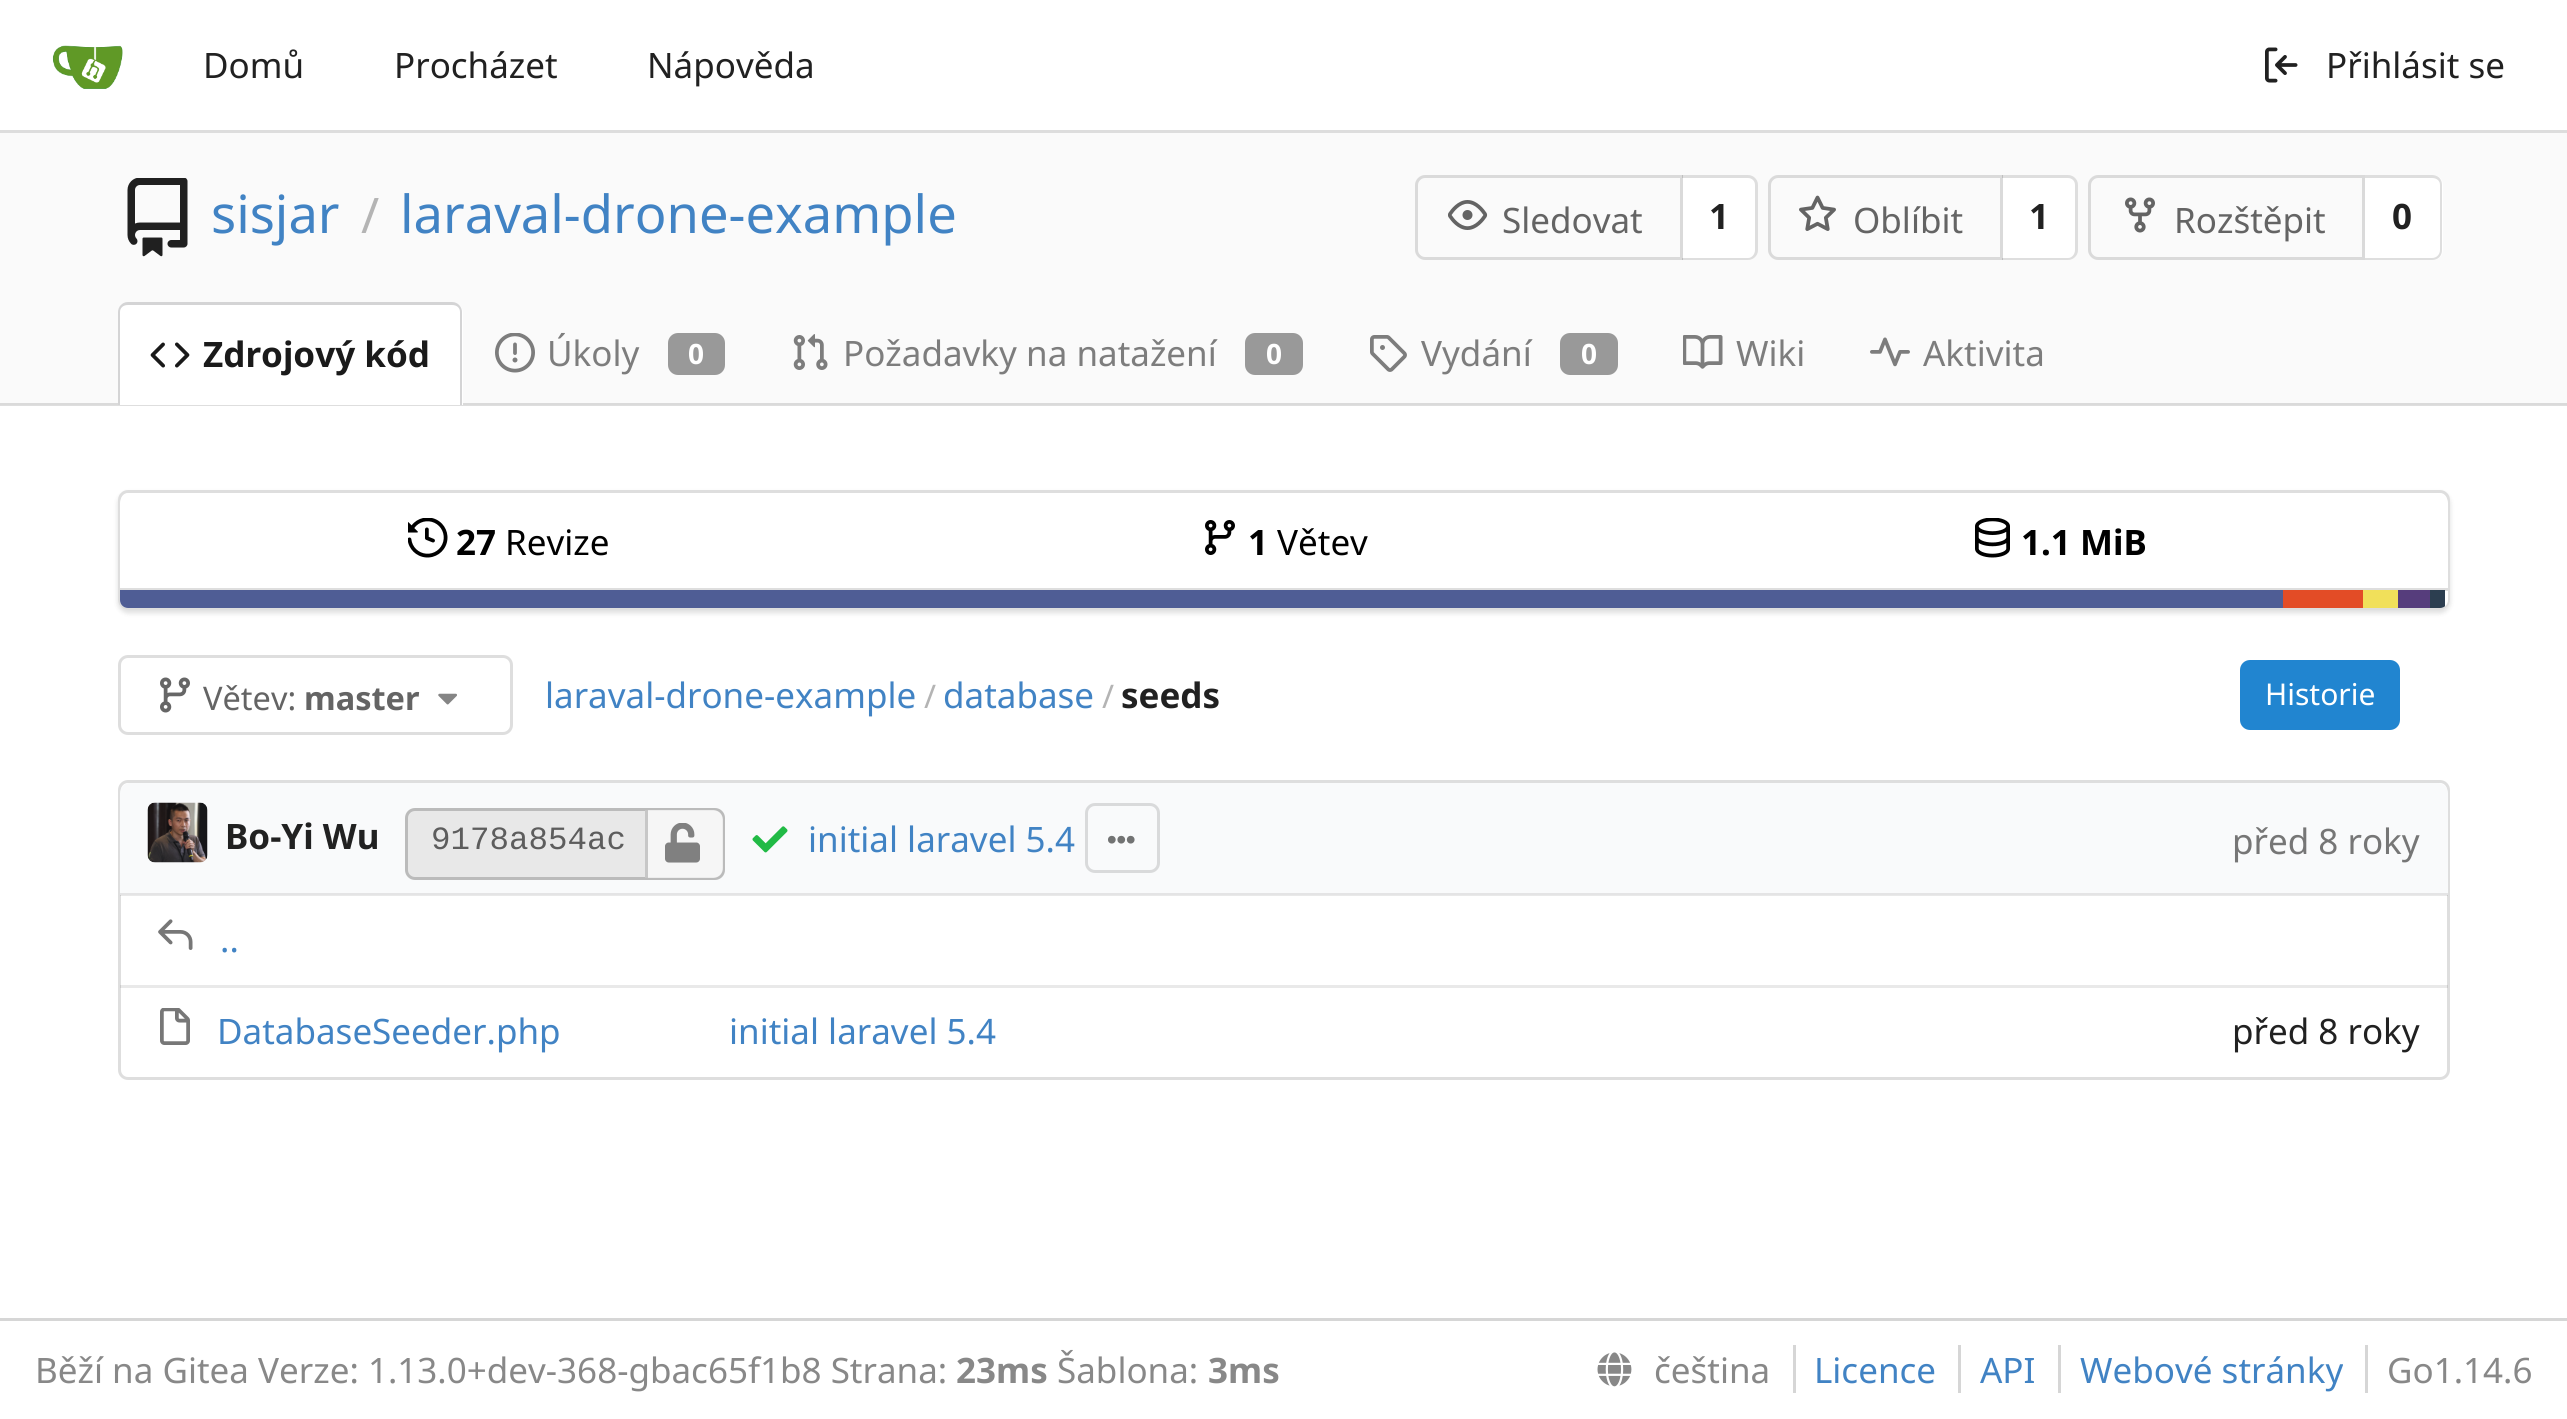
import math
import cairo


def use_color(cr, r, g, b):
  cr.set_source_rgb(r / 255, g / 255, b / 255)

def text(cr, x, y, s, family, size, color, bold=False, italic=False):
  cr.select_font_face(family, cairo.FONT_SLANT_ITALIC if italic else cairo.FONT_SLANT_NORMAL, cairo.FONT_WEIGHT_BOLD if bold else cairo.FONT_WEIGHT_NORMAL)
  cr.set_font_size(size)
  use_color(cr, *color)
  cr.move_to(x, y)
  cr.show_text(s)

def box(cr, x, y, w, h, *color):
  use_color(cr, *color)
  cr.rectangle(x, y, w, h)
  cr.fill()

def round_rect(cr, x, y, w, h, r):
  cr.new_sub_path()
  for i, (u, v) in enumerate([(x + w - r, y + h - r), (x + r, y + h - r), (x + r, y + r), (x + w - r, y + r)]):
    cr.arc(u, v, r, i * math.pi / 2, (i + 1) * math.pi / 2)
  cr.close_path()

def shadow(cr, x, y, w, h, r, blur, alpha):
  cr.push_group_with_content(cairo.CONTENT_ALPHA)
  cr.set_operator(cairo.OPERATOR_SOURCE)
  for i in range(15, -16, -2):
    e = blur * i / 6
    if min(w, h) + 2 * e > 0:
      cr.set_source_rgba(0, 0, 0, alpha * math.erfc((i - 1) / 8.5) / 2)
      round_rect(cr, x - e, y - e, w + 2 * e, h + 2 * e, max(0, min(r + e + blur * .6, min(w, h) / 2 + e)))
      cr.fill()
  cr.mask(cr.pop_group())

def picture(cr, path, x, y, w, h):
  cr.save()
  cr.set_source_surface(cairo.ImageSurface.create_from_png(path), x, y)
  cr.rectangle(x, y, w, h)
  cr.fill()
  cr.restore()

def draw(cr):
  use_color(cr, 255, 255, 255)
  cr.paint()
  box(cr, 0, 405, 2567, 1, 222, 222, 222)
  box(cr, 0, 130, 2567, 3, 221, 221, 221)
  picture(cr, "img_01.png", 52, 45, 71, 44)
  picture(cr, "img_02.png", 2265, 47, 33, 36)
  box(cr, 0, 133, 2567, 270, 250, 250, 250)
  box(cr, 0, 403, 2567, 2, 218, 218, 218)
  picture(cr, "img_03.png", 127, 178, 61, 79)
  cr.new_path()
  cr.move_to(1425, 176.5)
  cr.line_to(1681.5, 176.5)
  cr.line_to(1681.5, 258.5)
  cr.line_to(1425, 258.5)
  cr.curve_to(1420.5, 258.5, 1416.5, 254.5, 1416.5, 250)
  cr.line_to(1416.5, 185)
  cr.curve_to(1416.5, 180.5, 1420.5, 176.5, 1425, 176.5)
  cr.close_path()
  cr.set_line_width(3)
  cr.stroke()
  picture(cr, "img_04.png", 1448, 200, 40, 30)
  use_color(cr, 255, 255, 255)
  cr.new_path()
  cr.move_to(1683, 175)
  cr.line_to(1748, 175)
  cr.curve_to(1753.5, 175, 1758, 179.5, 1758, 185)
  cr.line_to(1758, 250)
  cr.curve_to(1758, 255.5, 1753.5, 260, 1748, 260)
  cr.line_to(1683, 260)
  cr.close_path()
  cr.fill()
  cr.set_source_rgba(0.133, 0.141, 0.149, 0.15)
  cr.set_fill_rule(cairo.FILL_RULE_EVEN_ODD)
  cr.new_path()
  cr.move_to(1682, 175)
  cr.line_to(1748, 175)
  cr.curve_to(1753, 175, 1758, 179, 1758, 185)
  cr.line_to(1758, 250)
  cr.curve_to(1758, 256, 1753, 260, 1748, 260)
  cr.line_to(1682, 260)
  cr.close_path()
  cr.move_to(1682, 178)
  cr.line_to(1748, 178)
  cr.curve_to(1752, 178, 1755, 181, 1755, 185)
  cr.line_to(1755, 250)
  cr.curve_to(1755, 254, 1752, 258, 1748, 258)
  cr.line_to(1682, 258)
  cr.close_path()
  cr.fill()
  cr.new_path()
  cr.move_to(1778, 176.5)
  cr.line_to(2001.5, 176.5)
  cr.line_to(2001.5, 258.5)
  cr.line_to(1778, 258.5)
  cr.curve_to(1773.5, 258.5, 1769.5, 254.5, 1769.5, 250)
  cr.line_to(1769.5, 185)
  cr.curve_to(1769.5, 180.5, 1773.5, 176.5, 1778, 176.5)
  cr.close_path()
  use_color(cr, 218, 218, 218)
  cr.stroke()
  picture(cr, "img_05.png", 1799, 195, 37, 36)
  use_color(cr, 255, 255, 255)
  cr.new_path()
  cr.move_to(2003, 175)
  cr.line_to(2068, 175)
  cr.curve_to(2073.5, 175, 2078, 179.5, 2078, 185)
  cr.line_to(2078, 250)
  cr.curve_to(2078, 255.5, 2073.5, 260, 2068, 260)
  cr.line_to(2003, 260)
  cr.close_path()
  cr.fill()
  cr.set_source_rgba(0.133, 0.141, 0.149, 0.15)
  cr.new_path()
  cr.move_to(2002, 175)
  cr.line_to(2068, 175)
  cr.curve_to(2073, 175, 2078, 179, 2078, 185)
  cr.line_to(2078, 250)
  cr.curve_to(2078, 256, 2073, 260, 2068, 260)
  cr.line_to(2002, 260)
  cr.close_path()
  cr.move_to(2002, 178)
  cr.line_to(2068, 178)
  cr.curve_to(2072, 178, 2075, 181, 2075, 185)
  cr.line_to(2075, 250)
  cr.curve_to(2075, 254, 2072, 258, 2068, 258)
  cr.line_to(2002, 258)
  cr.close_path()
  cr.fill()
  cr.new_path()
  cr.move_to(2098, 176.5)
  cr.line_to(2363.5, 176.5)
  cr.line_to(2363.5, 258.5)
  cr.line_to(2098, 258.5)
  cr.curve_to(2093.5, 258.5, 2089.5, 254.5, 2089.5, 250)
  cr.line_to(2089.5, 185)
  cr.curve_to(2089.5, 180.5, 2093.5, 176.5, 2098, 176.5)
  cr.close_path()
  use_color(cr, 218, 218, 218)
  cr.stroke()
  picture(cr, "img_06.png", 2125, 197, 30, 36)
  use_color(cr, 255, 255, 255)
  cr.new_path()
  cr.move_to(2365, 175)
  cr.line_to(2433, 175)
  cr.curve_to(2438.5, 175, 2443, 179.5, 2443, 185)
  cr.line_to(2443, 250)
  cr.curve_to(2443, 255.5, 2438.5, 260, 2433, 260)
  cr.line_to(2365, 260)
  cr.close_path()
  cr.fill()
  use_color(cr, 222, 222, 222)
  cr.new_path()
  cr.move_to(2365, 175)
  cr.line_to(2432, 175)
  cr.curve_to(2438, 175, 2442, 179, 2442, 185)
  cr.line_to(2442, 250)
  cr.curve_to(2442, 256, 2438, 260, 2432, 260)
  cr.line_to(2365, 260)
  cr.close_path()
  cr.move_to(2365, 178)
  cr.line_to(2432, 178)
  cr.curve_to(2437, 178, 2440, 181, 2440, 185)
  cr.line_to(2440, 250)
  cr.curve_to(2440, 254, 2437, 258, 2432, 258)
  cr.line_to(2365, 258)
  cr.close_path()
  cr.fill()
  use_color(cr, 255, 255, 255)
  cr.new_path()
  cr.move_to(128, 303)
  cr.line_to(453, 303)
  cr.curve_to(458.5, 303, 463, 307.5, 463, 313)
  cr.line_to(463, 405)
  cr.line_to(118, 405)
  cr.line_to(118, 313)
  cr.curve_to(118, 307.5, 122.5, 303, 128, 303)
  cr.close_path()
  cr.fill()
  use_color(cr, 212, 212, 213)
  cr.new_path()
  cr.move_to(128, 302)
  cr.line_to(452, 302)
  cr.curve_to(458, 302, 462, 307, 462, 312)
  cr.line_to(462, 405)
  cr.line_to(118, 405)
  cr.line_to(118, 312)
  cr.curve_to(118, 307, 122, 302, 128, 302)
  cr.close_path()
  cr.move_to(128, 305)
  cr.line_to(452, 305)
  cr.curve_to(457, 305, 460, 308, 460, 312)
  cr.line_to(460, 405)
  cr.line_to(120, 405)
  cr.line_to(120, 312)
  cr.curve_to(120, 308, 123, 305, 128, 305)
  cr.close_path()
  cr.fill()
  picture(cr, "img_07.png", 150, 342, 40, 26)
  picture(cr, "img_08.png", 495, 333, 40, 40)
  use_color(cr, 153, 153, 153)
  round_rect(cr, 668, 333, 57, 42, 10)
  cr.fill()
  picture(cr, "img_09.png", 793, 334, 35, 36)
  round_rect(cr, 1245, 333, 58, 42, 10)
  cr.fill()
  picture(cr, "img_10.png", 1370, 335, 37, 37)
  round_rect(cr, 1560, 333, 58, 42, 10)
  cr.fill()
  picture(cr, "img_11.png", 1683, 335, 40, 34)
  picture(cr, "img_12.png", 1870, 337, 40, 30)
  cr.save()
  cr.new_path()
  cr.move_to(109, 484)
  cr.line_to(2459, 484)
  cr.line_to(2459, 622)
  cr.line_to(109, 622)
  cr.close_path()
  cr.move_to(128, 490)
  cr.line_to(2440, 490)
  cr.curve_to(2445.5, 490, 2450, 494.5, 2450, 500)
  cr.line_to(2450, 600)
  cr.curve_to(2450, 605.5, 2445.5, 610, 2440, 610)
  cr.line_to(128, 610)
  cr.curve_to(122.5, 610, 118, 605.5, 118, 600)
  cr.line_to(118, 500)
  cr.curve_to(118, 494.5, 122.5, 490, 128, 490)
  cr.close_path()
  cr.clip()
  use_color(cr, 34, 36, 38)
  shadow(cr, 118, 493, 2332, 120, 10, 2.5, 0.15)
  cr.restore()
  round_rect(cr, 119.5, 491.5, 2329, 117, 8.5)
  cr.set_source_rgba(0.133, 0.141, 0.149, 0.15)
  cr.stroke()
  use_color(cr, 255, 255, 255)
  cr.new_path()
  cr.move_to(130, 493)
  cr.line_to(2438, 493)
  cr.curve_to(2443.5, 493, 2448, 497.5, 2448, 503)
  cr.line_to(2448, 588)
  cr.line_to(120, 588)
  cr.line_to(120, 503)
  cr.curve_to(120, 497.5, 124.5, 493, 130, 493)
  cr.close_path()
  cr.fill()
  picture(cr, "img_13.png", 408, 518, 40, 40)
  picture(cr, "img_14.png", 1205, 520, 30, 35)
  picture(cr, "img_15.png", 1975, 518, 35, 40)
  cr.save()
  cr.set_fill_rule(cairo.FILL_RULE_WINDING)
  round_rect(cr, 120, 493, 2328, 115, 8)
  cr.clip()
  cr.new_path()
  cr.move_to(120, 588)
  cr.line_to(2448, 588)
  cr.line_to(2448, 605)
  cr.curve_to(2448, 610.5, 2443.5, 615, 2438, 615)
  cr.line_to(130, 615)
  cr.curve_to(124.5, 615, 120, 610.5, 120, 605)
  cr.close_path()
  cr.fill()
  cr.restore()
  box(cr, 120, 588, 2328, 3, 222, 222, 222)
  use_color(cr, 79, 93, 149)
  cr.new_path()
  cr.move_to(120, 590)
  cr.line_to(2283, 590)
  cr.line_to(2283, 608)
  cr.line_to(128, 608)
  cr.curve_to(123.5, 608, 120, 604.5, 120, 600)
  cr.close_path()
  cr.fill()
  box(cr, 2283, 590, 80, 18, 227, 76, 38)
  box(cr, 2363, 590, 35, 18, 241, 224, 90)
  box(cr, 2398, 590, 32, 18, 86, 61, 124)
  cr.save()
  cr.set_fill_rule(cairo.FILL_RULE_WINDING)
  round_rect(cr, 120, 493, 2328, 115, 8)
  cr.clip()
  box(cr, 2430, 590, 15, 18, 44, 62, 80)
  cr.restore()
  round_rect(cr, 119.5, 656.5, 392, 77, 8.5)
  use_color(cr, 222, 222, 222)
  cr.stroke()
  picture(cr, "img_16.png", 160, 677, 30, 36)
  picture(cr, "img_17.png", 438, 693, 19, 12)
  use_color(cr, 33, 133, 208)
  round_rect(cr, 2240, 660, 160, 70, 10)
  cr.fill()
  round_rect(cr, 119.5, 781.5, 2329, 297, 8.5)
  use_color(cr, 222, 222, 222)
  cr.stroke()
  use_color(cr, 249, 250, 251)
  cr.new_path()
  cr.move_to(130, 783)
  cr.line_to(2010, 783)
  cr.line_to(2010, 895)
  cr.line_to(120, 895)
  cr.line_to(120, 793)
  cr.curve_to(120, 787.5, 124.5, 783, 130, 783)
  cr.close_path()
  cr.fill()
  cr.set_source_rgba(0.133, 0.141, 0.149, 0.1)
  cr.rectangle(120, 893, 1890, 3)
  cr.fill()
  picture(cr, "img_18.png", 147, 802, 61, 61)
  use_color(cr, 232, 232, 232)
  round_rect(cr, 406.5, 809.5, 317, 69, 8.5)
  cr.fill_preserve()
  use_color(cr, 187, 187, 187)
  cr.stroke()
  cr.set_source_rgba(0.98, 0.98, 0.98, 0.8)
  cr.new_path()
  cr.move_to(645, 810)
  cr.line_to(713, 810)
  cr.curve_to(718.5, 810, 723, 814.5, 723, 820)
  cr.line_to(723, 868)
  cr.curve_to(723, 873.5, 718.5, 878, 713, 878)
  cr.line_to(645, 878)
  cr.close_path()
  cr.fill()
  cr.set_source_rgba(0.733, 0.733, 0.733, 0.8)
  cr.rectangle(645, 810, 3, 68)
  cr.fill()
  picture(cr, "img_19.png", 665, 823, 35, 40)
  picture(cr, "img_20.png", 752, 826, 36, 27)
  round_rect(cr, 1086.5, 804.5, 72, 67, 8.5)
  use_color(cr, 217, 218, 219)
  cr.stroke()
  picture(cr, "img_21.png", 1108, 835, 27, 9)
  use_color(cr, 249, 250, 251)
  cr.new_path()
  cr.move_to(2010, 783)
  cr.line_to(2438, 783)
  cr.curve_to(2443.5, 783, 2448, 787.5, 2448, 793)
  cr.line_to(2448, 895)
  cr.line_to(2010, 895)
  cr.close_path()
  cr.fill()
  cr.set_source_rgba(0.133, 0.141, 0.149, 0.1)
  cr.rectangle(2010, 893, 438, 3)
  cr.fill()
  picture(cr, "img_22.png", 158, 919, 35, 31)
  cr.rectangle(120, 985, 583, 3)
  cr.fill()
  picture(cr, "img_23.png", 160, 1008, 30, 37)
  box(cr, 703, 985, 1307, 3, 233, 233, 233)
  cr.set_source_rgba(0.133, 0.141, 0.149, 0.1)
  cr.rectangle(2010, 985, 438, 3)
  cr.fill()
  box(cr, 0, 1318, 2567, 3, 214, 214, 214)
  picture(cr, "img_24.png", 1597, 1352, 35, 35)
  box(cr, 1793, 1345, 3, 48, 214, 214, 214)
  box(cr, 1958, 1345, 3, 48, 214, 214, 214)
  box(cr, 2058, 1345, 3, 48, 214, 214, 214)
  box(cr, 2365, 1345, 3, 48, 214, 214, 214)
  text(cr, 203, 78, "Domů", "Noto Sans", 35, (33, 33, 33))
  text(cr, 394, 78, "Procházet", "Noto Sans", 35, (33, 33, 33))
  text(cr, 647, 78, "Nápověda", "Noto Sans", 35, (33, 33, 33))
  text(cr, 2326, 78, "Přihlásit se", "Noto Sans", 35, (33, 33, 33))
  text(cr, 211, 233, "sisjar", "Noto Sans", 52.5, (65, 131, 196))
  text(cr, 361, 233, "/", "Noto Sans", 49, (180, 180, 180))
  text(cr, 400, 233, "laraval-drone-example", "Noto Sans", 52.5, (65, 131, 196))
  text(cr, 1502, 233, "Sledovat", "Noto Sans", 35, (100, 100, 100))
  text(cr, 1709, 229, "1", "Noto Sans", 35, (33, 33, 33), bold=True)
  text(cr, 1853, 233, "Oblíbit", "Noto Sans", 35, (100, 100, 100))
  text(cr, 2029, 229, "1", "Noto Sans", 35, (33, 33, 33), bold=True)
  text(cr, 2174, 233, "Rozštěpit", "Noto Sans", 35, (100, 100, 100))
  text(cr, 2392, 229, "0", "Noto Sans", 35, (33, 33, 33), bold=True)
  text(cr, 203, 367, "Zdrojový kód", "Noto Sans", 35, (26, 26, 26), bold=True)
  text(cr, 547, 366, "Úkoly", "Noto Sans", 35, (125, 125, 125))
  text(cr, 688, 364, "0", "Noto Sans", 28, (255, 255, 255), bold=True)
  text(cr, 843, 366, "Požadavky na natažení", "Noto Sans", 35, (125, 125, 125))
  text(cr, 1266, 364, "0", "Noto Sans", 28, (255, 255, 255), bold=True)
  text(cr, 1421, 366, "Vydání", "Noto Sans", 35, (125, 125, 125))
  text(cr, 1581, 364, "0", "Noto Sans", 28, (255, 255, 255), bold=True)
  text(cr, 1736, 366, "Wiki", "Noto Sans", 35, (125, 125, 125))
  text(cr, 1923, 366, "Aktivita", "Noto Sans", 35, (125, 125, 125))
  text(cr, 456, 555, "27", "Noto Sans", 35, (0, 0, 0), bold=True)
  text(cr, 505, 555, "Revize", "Noto Sans", 35, (0, 0, 0))
  text(cr, 1248, 555, "1", "Noto Sans", 35, (0, 0, 0), bold=True)
  text(cr, 1277, 555, "Větev", "Noto Sans", 35, (0, 0, 0))
  text(cr, 2021, 555, "1.1 MiB", "Noto Sans", 35, (0, 0, 0), bold=True)
  text(cr, 203, 710, "Větev:", "Noto Sans", 32.5, (100, 100, 100))
  text(cr, 304, 710, "master", "Noto Sans", 32.5, (100, 100, 100), bold=True)
  text(cr, 545, 708, "laraval-drone-example", "Noto Sans", 35, (65, 131, 196))
  text(cr, 924, 708, "/", "Noto Sans", 32.5, (180, 180, 180))
  text(cr, 943, 708, "database", "Noto Sans", 35, (65, 131, 196))
  text(cr, 1102, 708, "/", "Noto Sans", 32.5, (180, 180, 180))
  text(cr, 1121, 708, "seeds", "Noto Sans", 35, (33, 33, 33), bold=True)
  text(cr, 2265, 705, "Historie", "Noto Sans", 30, (255, 255, 255))
  text(cr, 225, 849, "Bo-Yi Wu", "Noto Sans", 35, (33, 33, 33), bold=True)
  text(cr, 431, 849, "9178a854ac", "Liberation Mono", 32.5, (93, 93, 93))
  text(cr, 808, 852, "initial laravel 5.4", "Noto Sans", 35, (65, 131, 196))
  text(cr, 2232, 854, "před 8 roky", "Noto Sans", 35, (118, 118, 118))
  text(cr, 220, 952, "..", "Noto Sans", 35, (65, 131, 196))
  text(cr, 217, 1044, "DatabaseSeeder.php", "Noto Sans", 35, (65, 131, 196))
  text(cr, 729, 1044, "initial laravel 5.4", "Noto Sans", 35, (65, 131, 196))
  text(cr, 2232, 1044, "před 8 roky", "Noto Sans", 35, (33, 33, 33))
  text(cr, 35, 1383, "Běží na Gitea Verze: 1.13.0+dev-368-gbac65f1b8 Strana:", "Noto Sans", 35, (136, 136, 136))
  text(cr, 956, 1383, "23ms", "Noto Sans", 35, (136, 136, 136), bold=True)
  text(cr, 1057, 1383, "Šablona:", "Noto Sans", 35, (136, 136, 136))
  text(cr, 1208, 1383, "3ms", "Noto Sans", 35, (136, 136, 136), bold=True)
  text(cr, 1654, 1383, "čeština", "Noto Sans", 35, (136, 136, 136))
  text(cr, 1814, 1383, "Licence", "Noto Sans", 35, (65, 131, 196))
  text(cr, 1980, 1383, "API", "Noto Sans", 35, (65, 131, 196))
  text(cr, 2080, 1383, "Webové stránky", "Noto Sans", 35, (65, 131, 196))
  text(cr, 2387, 1383, "Go1.14.6", "Noto Sans", 35, (136, 136, 136))


surface = cairo.ImageSurface(cairo.FORMAT_RGB24, 2567, 1419)
cr = cairo.Context(surface)
options = cairo.FontOptions()
options.set_hint_metrics(cairo.HINT_METRICS_OFF)
options.set_hint_style(cairo.HINT_STYLE_NONE)
cr.set_font_options(options)
cr.set_miter_limit(4)
draw(cr)
surface.write_to_png("out.png")
